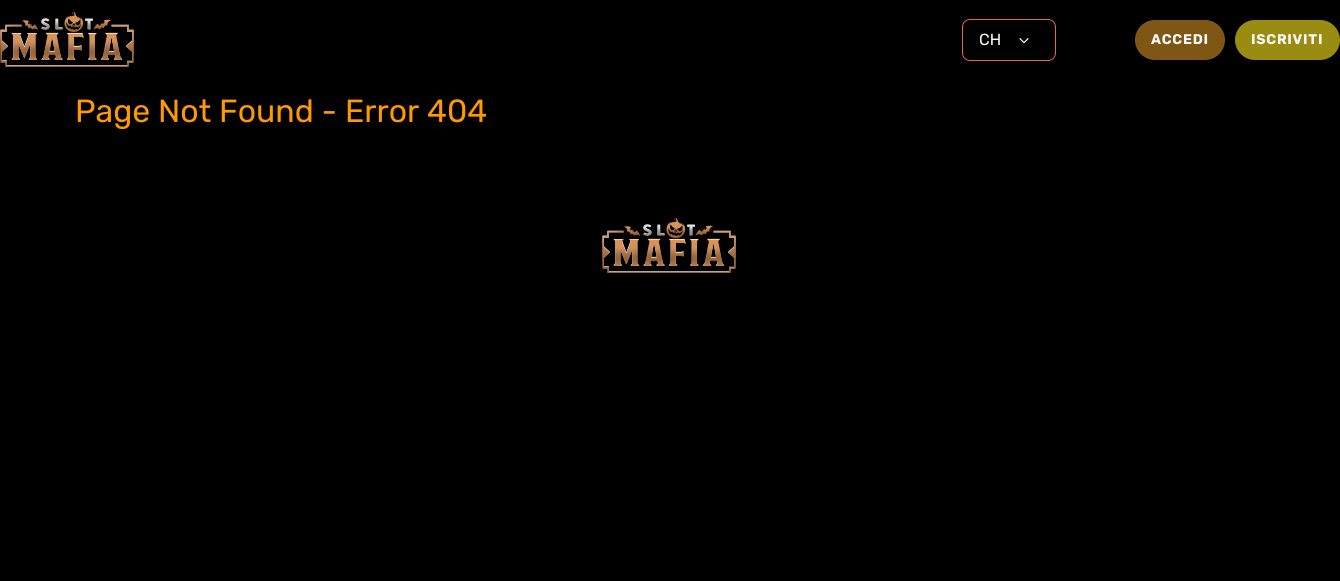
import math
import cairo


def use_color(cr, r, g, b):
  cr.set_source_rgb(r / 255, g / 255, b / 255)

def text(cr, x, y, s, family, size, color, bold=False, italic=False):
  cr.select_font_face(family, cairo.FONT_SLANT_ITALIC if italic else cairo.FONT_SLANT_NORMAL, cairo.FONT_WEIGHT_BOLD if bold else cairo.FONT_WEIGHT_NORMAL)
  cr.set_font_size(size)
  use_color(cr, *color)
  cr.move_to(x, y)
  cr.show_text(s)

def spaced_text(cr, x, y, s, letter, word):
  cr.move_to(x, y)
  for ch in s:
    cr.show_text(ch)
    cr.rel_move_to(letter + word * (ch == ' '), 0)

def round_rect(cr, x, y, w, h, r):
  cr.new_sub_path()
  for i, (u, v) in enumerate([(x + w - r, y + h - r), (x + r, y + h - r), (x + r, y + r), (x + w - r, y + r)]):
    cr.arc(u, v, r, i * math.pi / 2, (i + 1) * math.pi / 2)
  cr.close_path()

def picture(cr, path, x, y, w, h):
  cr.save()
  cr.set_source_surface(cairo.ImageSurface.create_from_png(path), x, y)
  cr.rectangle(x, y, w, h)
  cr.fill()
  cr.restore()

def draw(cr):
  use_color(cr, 0, 0, 0)
  cr.paint()
  picture(cr, "img_01.png", 0, 12, 134, 55)
  round_rect(cr, 962.5, 19.5, 93, 41, 7.5)
  use_color(cr, 229, 98, 89)
  cr.set_line_width(1)
  cr.stroke()
  picture(cr, "img_02.png", 1019, 38, 10, 6)
  use_color(cr, 126, 87, 21)
  round_rect(cr, 1135, 20, 90, 40, 20)
  cr.fill()
  gradient = cairo.LinearGradient(1286, 17, 1289, 63)
  gradient.add_color_stop_rgba(1, 0.604, 0.549, 0.067, 1)
  gradient.add_color_stop_rgba(1, 0.176, 0.694, 0.392, 1)
  cr.set_source(gradient)
  round_rect(cr, 1235, 20, 105, 40, 20)
  cr.fill()
  picture(cr, "img_01.png", 602, 218, 134, 55)
  text(cr, 979, 45, "CH", "Rubik", 16, (255, 255, 255))
  cr.select_font_face("Rubik", cairo.FONT_SLANT_NORMAL, cairo.FONT_WEIGHT_BOLD)
  cr.set_font_size(14)
  use_color(cr, 250, 247, 251)
  spaced_text(cr, 1151, 44, "ACCEDI", 0.75, 0)
  spaced_text(cr, 1251, 44, "ISCRIVITI", 0.75, 0)
  text(cr, 75, 122, "Page Not Found - Error 404", "Rubik", 32, (255, 153, 0))


surface = cairo.ImageSurface(cairo.FORMAT_RGB24, 1340, 581)
cr = cairo.Context(surface)
options = cairo.FontOptions()
options.set_hint_metrics(cairo.HINT_METRICS_OFF)
options.set_hint_style(cairo.HINT_STYLE_NONE)
cr.set_font_options(options)
cr.set_miter_limit(4)
draw(cr)
surface.write_to_png("out.png")
